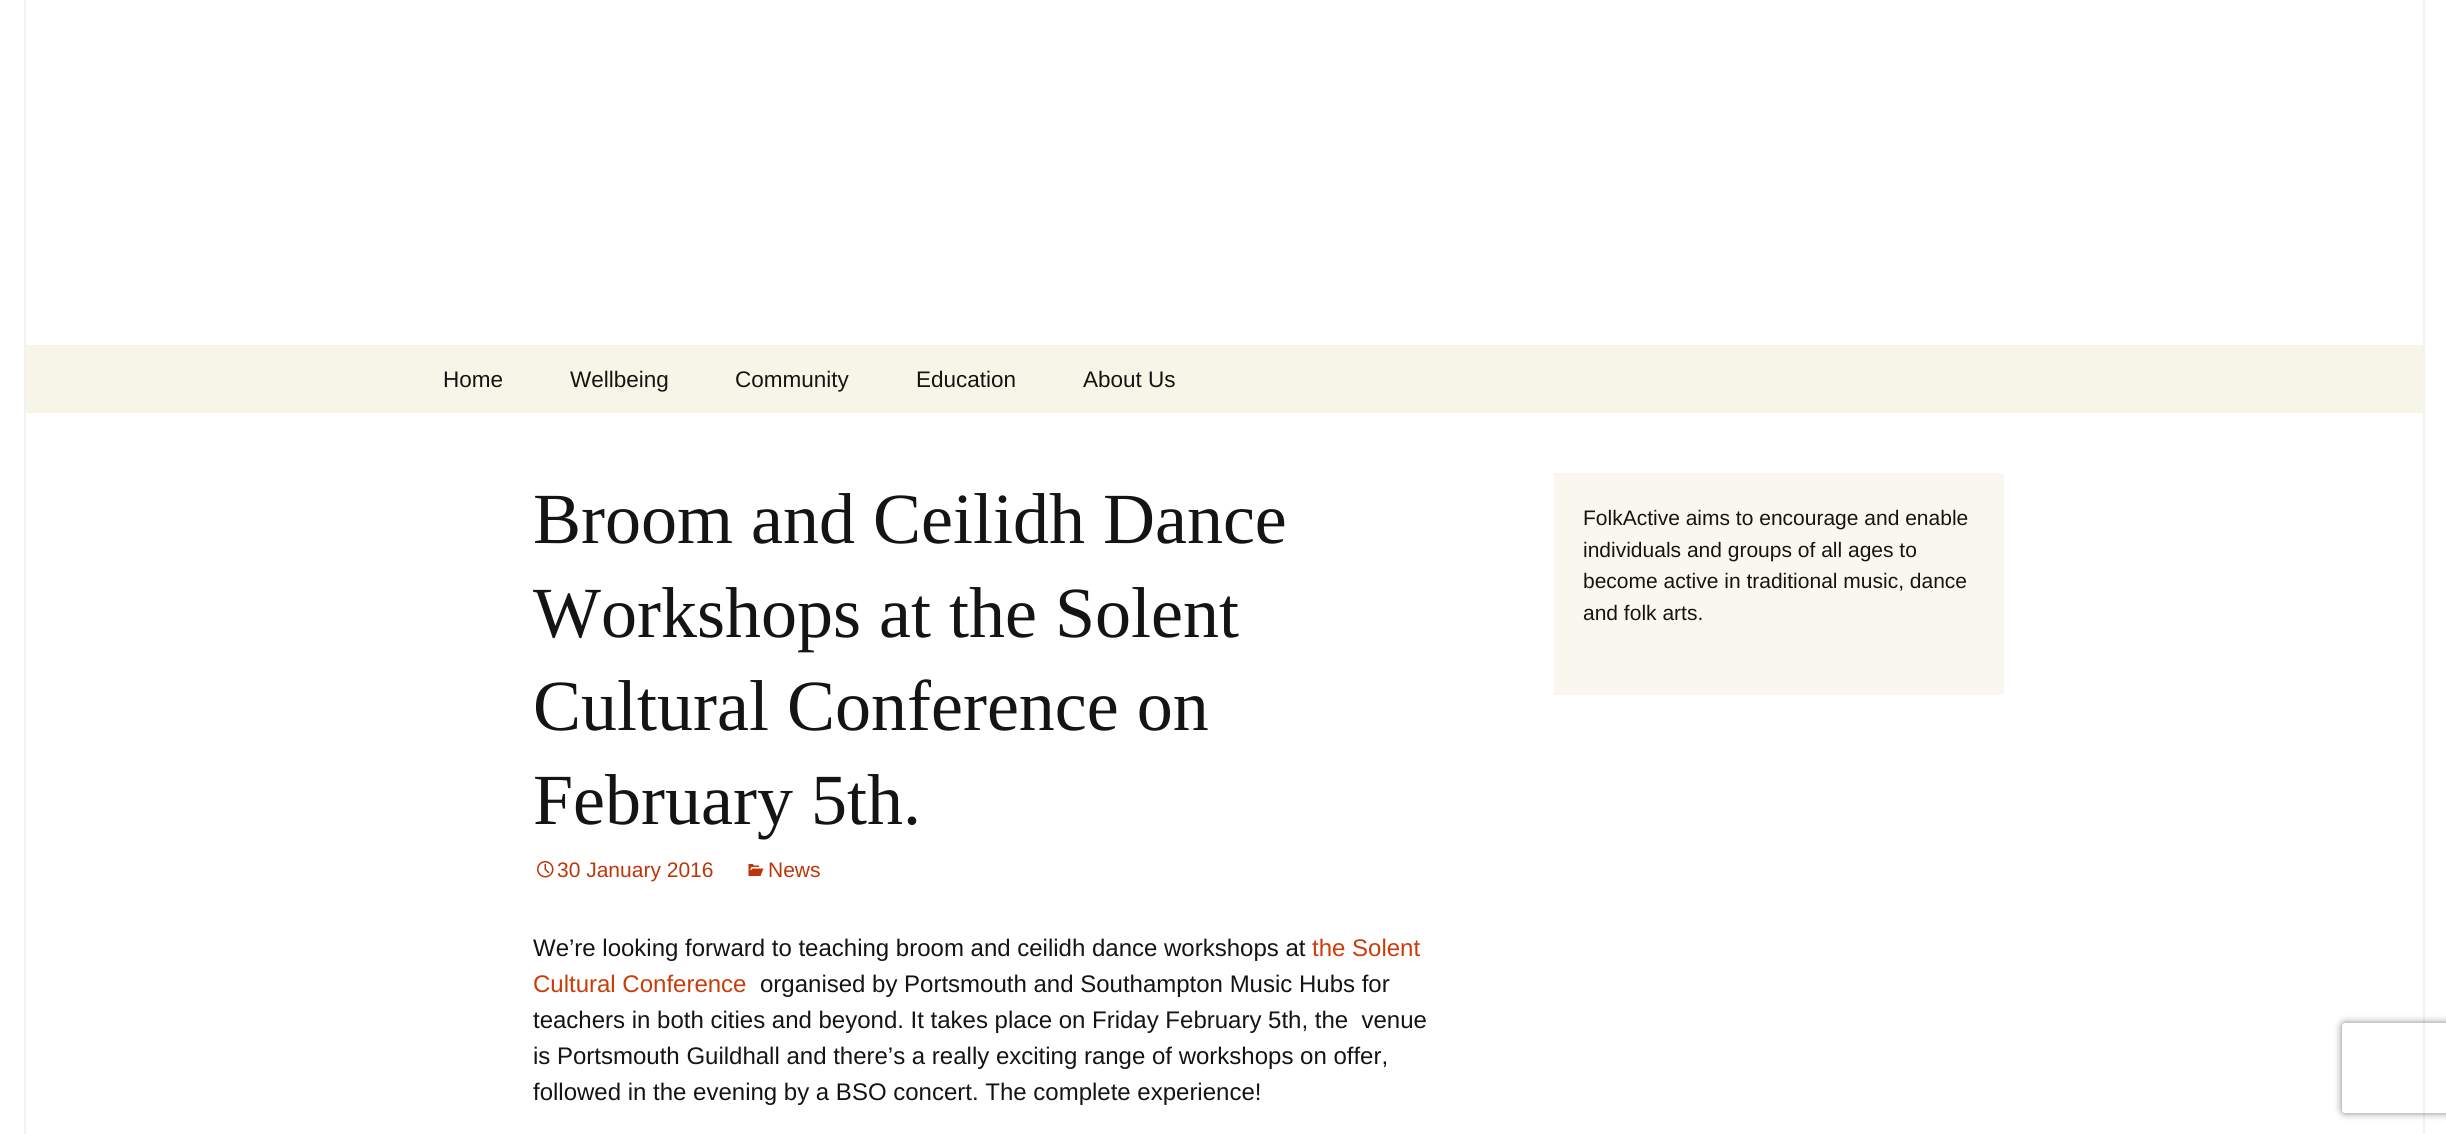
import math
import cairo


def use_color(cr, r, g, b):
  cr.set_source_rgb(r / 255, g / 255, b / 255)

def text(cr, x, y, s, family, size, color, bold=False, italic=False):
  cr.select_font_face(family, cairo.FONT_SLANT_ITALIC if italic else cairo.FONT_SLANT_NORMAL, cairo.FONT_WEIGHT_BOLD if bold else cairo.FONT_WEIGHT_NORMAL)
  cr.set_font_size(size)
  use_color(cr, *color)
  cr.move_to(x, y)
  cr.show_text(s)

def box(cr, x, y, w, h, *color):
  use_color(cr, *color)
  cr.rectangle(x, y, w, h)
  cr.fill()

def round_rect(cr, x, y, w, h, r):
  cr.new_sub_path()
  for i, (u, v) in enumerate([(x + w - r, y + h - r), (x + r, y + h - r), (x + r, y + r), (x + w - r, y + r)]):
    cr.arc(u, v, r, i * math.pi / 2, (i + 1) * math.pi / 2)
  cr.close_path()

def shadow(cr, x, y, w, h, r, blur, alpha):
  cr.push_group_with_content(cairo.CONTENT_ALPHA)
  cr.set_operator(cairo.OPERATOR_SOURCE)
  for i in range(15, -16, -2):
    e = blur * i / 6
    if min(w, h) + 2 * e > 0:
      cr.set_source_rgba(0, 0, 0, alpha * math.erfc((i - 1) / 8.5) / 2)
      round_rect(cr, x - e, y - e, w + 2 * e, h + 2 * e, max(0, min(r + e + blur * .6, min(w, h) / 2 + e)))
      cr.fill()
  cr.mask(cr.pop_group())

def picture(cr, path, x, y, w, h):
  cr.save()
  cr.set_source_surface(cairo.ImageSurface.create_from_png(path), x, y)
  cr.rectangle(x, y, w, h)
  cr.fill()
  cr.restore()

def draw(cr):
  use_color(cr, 255, 255, 255)
  cr.paint()
  box(cr, 2423, 0, 2, 1134, 242, 242, 242)
  box(cr, 24, 0, 2, 1134, 242, 242, 242)
  box(cr, 26, 345, 2397, 68, 247, 245, 231)
  picture(cr, "img_01.png", 537, 861, 17, 17)
  picture(cr, "img_02.png", 748, 864, 16, 12)
  box(cr, 1554, 473, 450, 222, 250, 248, 238)
  cr.save()
  cr.set_fill_rule(cairo.FILL_RULE_EVEN_ODD)
  cr.new_path()
  cr.move_to(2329, 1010)
  cr.line_to(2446, 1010)
  cr.line_to(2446, 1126)
  cr.line_to(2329, 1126)
  cr.close_path()
  cr.move_to(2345, 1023)
  cr.line_to(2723, 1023)
  cr.curve_to(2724.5, 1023, 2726, 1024.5, 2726, 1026)
  cr.line_to(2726, 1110)
  cr.curve_to(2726, 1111.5, 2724.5, 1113, 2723, 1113)
  cr.line_to(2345, 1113)
  cr.curve_to(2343.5, 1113, 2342, 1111.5, 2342, 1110)
  cr.line_to(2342, 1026)
  cr.curve_to(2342, 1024.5, 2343.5, 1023, 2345, 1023)
  cr.close_path()
  cr.clip()
  use_color(cr, 128, 128, 128)
  shadow(cr, 2342, 1023, 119, 90, 3, 4, 1)
  cr.restore()
  text(cr, 443, 387, "Home", "Liberation Sans", 22.5, (20, 20, 18))
  text(cr, 570, 387, "Wellbeing", "Liberation Sans", 22.5, (20, 20, 18))
  text(cr, 735, 387, "Community", "Liberation Sans", 22.5, (20, 20, 18))
  text(cr, 916, 387, "Education", "Liberation Sans", 22.5, (20, 20, 18))
  text(cr, 1083, 387, "About Us", "Liberation Sans", 22.5, (20, 20, 18))
  text(cr, 533, 543, "Broom and Ceilidh Dance", "Liberation Serif", 72, (20, 20, 18))
  text(cr, 533, 637, "Workshops at the Solent", "Liberation Serif", 72, (20, 20, 18))
  text(cr, 533, 730, "Cultural Conference on", "Liberation Serif", 72, (20, 20, 18))
  text(cr, 533, 824, "February 5th.", "Liberation Serif", 72, (20, 20, 18))
  text(cr, 557, 877, "30 January 2016", "Liberation Sans", 21, (188, 54, 10))
  text(cr, 768, 877, "News", "Liberation Sans", 21, (188, 54, 10))
  text(cr, 533, 956, "We’re looking forward to teaching broom and ceilidh dance workshops at", "Liberation Sans", 24, (20, 20, 18))
  text(cr, 1312, 956, "the Solent", "Liberation Sans", 24, (202, 60, 8))
  text(cr, 533, 992, "Cultural Conference", "Liberation Sans", 24, (202, 60, 8))
  text(cr, 760, 992, "organised by Portsmouth and Southampton Music Hubs for", "Liberation Sans", 24, (20, 20, 18))
  text(cr, 533, 1028, "teachers in both cities and beyond. It takes place on Friday February 5th, the  venue", "Liberation Sans", 24, (20, 20, 18))
  text(cr, 533, 1064, "is Portsmouth Guildhall and there’s a really exciting range of workshops on offer,", "Liberation Sans", 24, (20, 20, 18))
  text(cr, 533, 1100, "followed in the evening by a BSO concert. The complete experience!", "Liberation Sans", 24, (20, 20, 18))
  text(cr, 1583, 525, "FolkActive aims to encourage and enable", "Liberation Sans", 21, (20, 20, 18))
  text(cr, 1583, 557, "individuals and groups of all ages to", "Liberation Sans", 21, (20, 20, 18))
  text(cr, 1583, 588, "become active in traditional music, dance", "Liberation Sans", 21, (20, 20, 18))
  text(cr, 1583, 620, "and folk arts.", "Liberation Sans", 21, (20, 20, 18))


surface = cairo.ImageSurface(cairo.FORMAT_RGB24, 2446, 1134)
cr = cairo.Context(surface)
options = cairo.FontOptions()
options.set_hint_metrics(cairo.HINT_METRICS_OFF)
options.set_hint_style(cairo.HINT_STYLE_NONE)
cr.set_font_options(options)
cr.set_miter_limit(4)
draw(cr)
surface.write_to_png("out.png")
